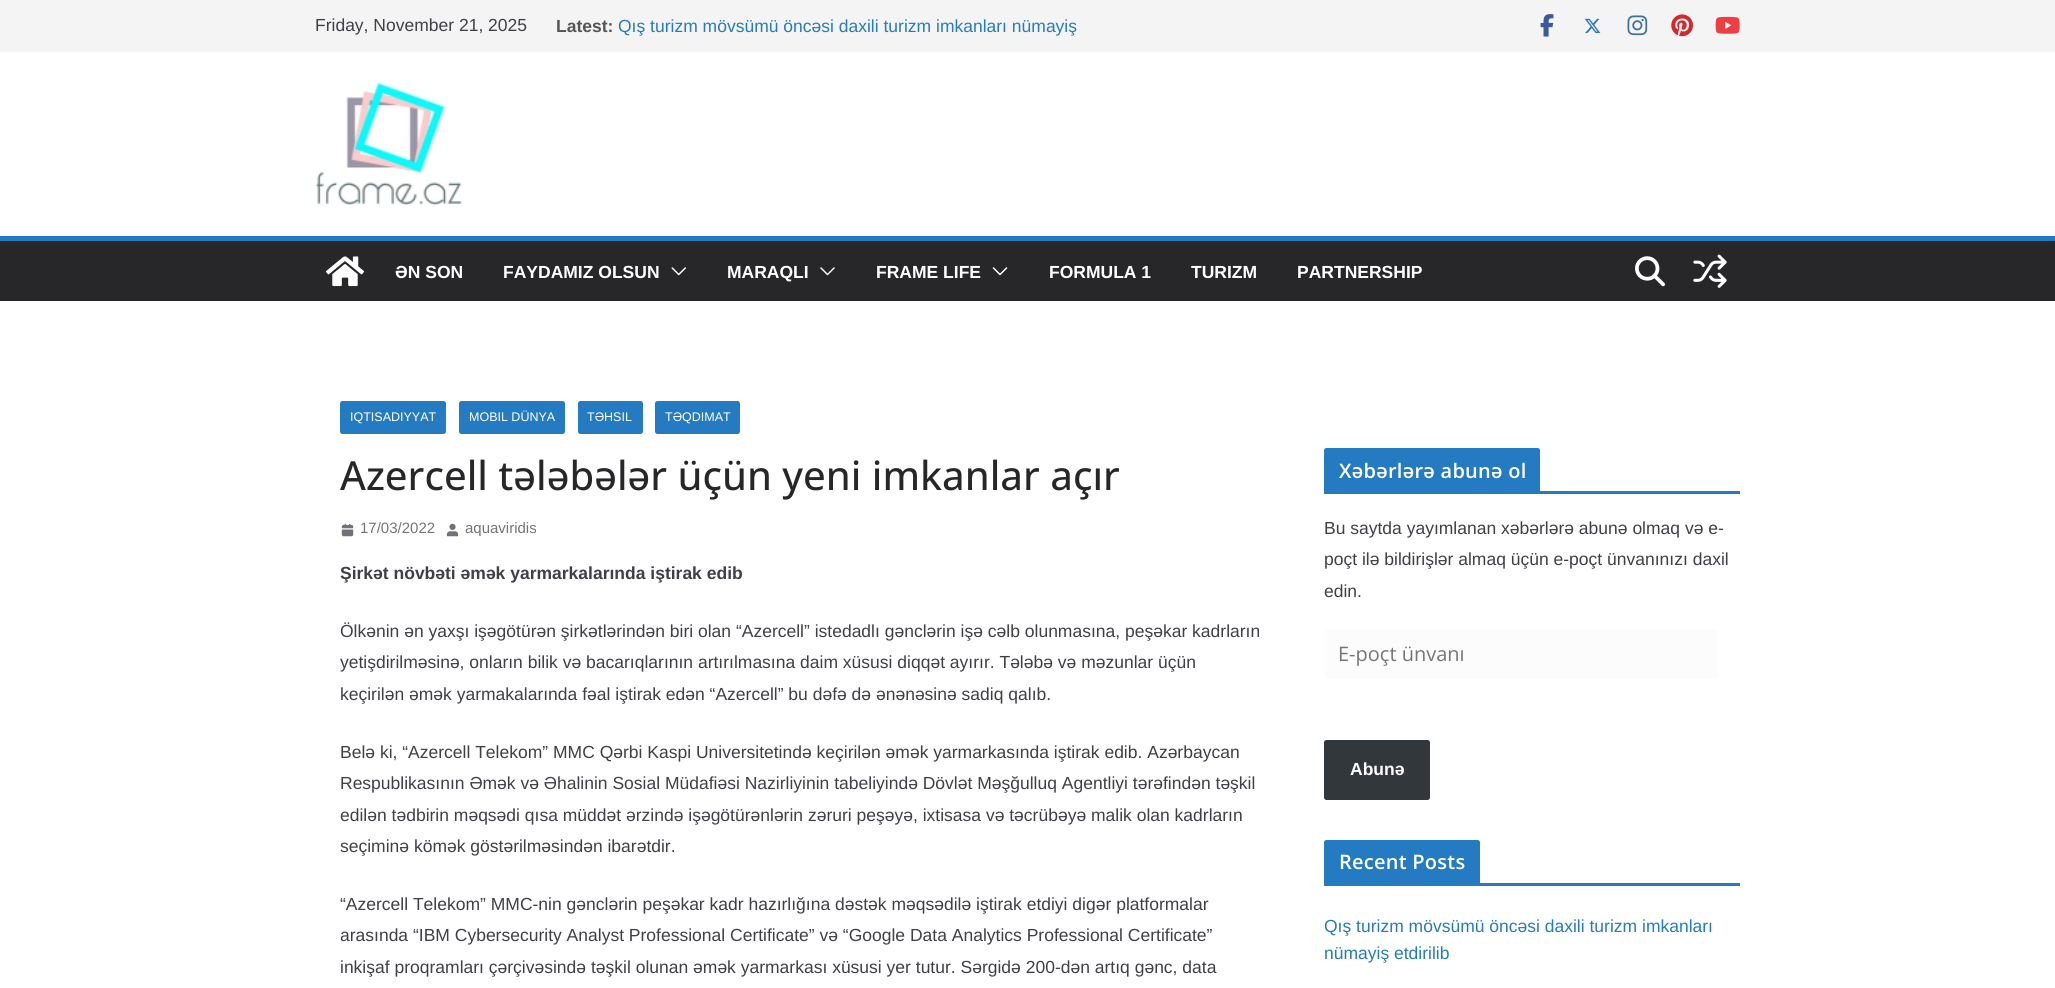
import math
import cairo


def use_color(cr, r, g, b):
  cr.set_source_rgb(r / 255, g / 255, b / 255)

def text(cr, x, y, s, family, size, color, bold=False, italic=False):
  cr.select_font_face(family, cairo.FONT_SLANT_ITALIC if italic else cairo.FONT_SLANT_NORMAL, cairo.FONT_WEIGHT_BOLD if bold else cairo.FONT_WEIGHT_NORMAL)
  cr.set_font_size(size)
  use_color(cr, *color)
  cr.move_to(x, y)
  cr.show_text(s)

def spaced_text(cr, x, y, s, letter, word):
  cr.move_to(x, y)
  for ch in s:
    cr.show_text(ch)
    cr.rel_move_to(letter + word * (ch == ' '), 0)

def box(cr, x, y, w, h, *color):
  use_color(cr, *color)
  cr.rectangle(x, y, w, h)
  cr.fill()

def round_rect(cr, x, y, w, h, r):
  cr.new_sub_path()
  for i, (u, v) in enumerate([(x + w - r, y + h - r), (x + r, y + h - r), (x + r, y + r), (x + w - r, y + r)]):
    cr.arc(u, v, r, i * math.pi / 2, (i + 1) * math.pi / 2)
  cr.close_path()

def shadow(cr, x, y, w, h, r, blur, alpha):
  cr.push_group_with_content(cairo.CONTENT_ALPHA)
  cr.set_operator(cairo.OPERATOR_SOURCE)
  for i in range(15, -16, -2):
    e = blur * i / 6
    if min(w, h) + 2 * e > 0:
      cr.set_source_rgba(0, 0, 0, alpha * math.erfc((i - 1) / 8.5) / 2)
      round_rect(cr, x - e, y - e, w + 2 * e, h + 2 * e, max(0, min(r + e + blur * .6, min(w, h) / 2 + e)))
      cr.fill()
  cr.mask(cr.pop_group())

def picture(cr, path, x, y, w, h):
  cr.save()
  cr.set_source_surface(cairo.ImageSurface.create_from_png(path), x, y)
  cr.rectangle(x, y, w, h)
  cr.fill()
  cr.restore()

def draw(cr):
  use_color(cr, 255, 255, 255)
  cr.paint()
  use_color(cr, 0, 0, 0)
  shadow(cr, 0, 0, 2055, 51, 0, 1, 0.1)
  box(cr, 0, 0, 2055, 51, 244, 244, 245)
  picture(cr, "img_01.png", 1540, 14, 14, 23)
  picture(cr, "img_02.png", 1584, 18, 17, 16)
  picture(cr, "img_03.png", 1627, 15, 21, 21)
  picture(cr, "img_04.png", 1671, 14, 23, 23)
  picture(cr, "img_05.png", 1715, 16, 25, 18)
  picture(cr, "img_06.png", 316, 82, 146, 124)
  box(cr, 0, 241, 2055, 60, 39, 39, 42)
  box(cr, 0, 236, 2055, 5, 37, 123, 193)
  picture(cr, "img_07.png", 326, 256, 38, 31)
  picture(cr, "img_08.png", 671, 267, 15, 9)
  picture(cr, "img_09.png", 820, 267, 15, 9)
  picture(cr, "img_10.png", 992, 267, 16, 9)
  picture(cr, "img_11.png", 1635, 256, 30, 31)
  picture(cr, "img_12.png", 1693, 254, 34, 34)
  round_rect(cr, 340, 401, 106, 33, 2.5)
  cr.fill()
  round_rect(cr, 459, 401, 106, 33, 2.5)
  cr.fill()
  round_rect(cr, 578, 401, 65, 33, 2.5)
  cr.fill()
  round_rect(cr, 655, 401, 85, 33, 2.5)
  cr.fill()
  picture(cr, "img_13.png", 341, 523, 13, 14)
  picture(cr, "img_14.png", 446, 523, 13, 14)
  box(cr, 1324, 491, 416, 3, 37, 123, 193)
  cr.new_path()
  cr.move_to(1326.5, 448)
  cr.line_to(1537.5, 448)
  cr.curve_to(1539, 448, 1540, 449, 1540, 450.5)
  cr.line_to(1540, 491)
  cr.line_to(1324, 491)
  cr.line_to(1324, 450.5)
  cr.curve_to(1324, 449, 1325, 448, 1326.5, 448)
  cr.close_path()
  cr.fill()
  use_color(cr, 252, 252, 252)
  round_rect(cr, 1324.5, 628.5, 394, 51, 4.5)
  cr.fill_preserve()
  use_color(cr, 255, 255, 255)
  cr.set_line_width(1)
  cr.stroke()
  use_color(cr, 50, 55, 60)
  round_rect(cr, 1324, 740, 106, 60, 2.5)
  cr.fill()
  box(cr, 1324, 883, 416, 3, 37, 123, 193)
  cr.new_path()
  cr.move_to(1326.5, 840)
  cr.line_to(1477.5, 840)
  cr.curve_to(1479, 840, 1480, 841, 1480, 842.5)
  cr.line_to(1480, 883)
  cr.line_to(1324, 883)
  cr.line_to(1324, 842.5)
  cr.curve_to(1324, 841, 1325, 840, 1326.5, 840)
  cr.close_path()
  cr.fill()
  text(cr, 315, 31, "Friday, November 21, 2025", "Liberation Sans", 17.5, (63, 63, 70))
  text(cr, 556, 32, "Latest:", "Liberation Sans", 17.5, (85, 85, 85), bold=True)
  text(cr, 618, 32, "Qış turizm mövsümü öncəsi daxili turizm imkanları nümayiş", "Liberation Sans", 17.5, (37, 123, 193))
  text(cr, 395, 278, "ƏN SON", "Liberation Sans", 17.5, (255, 255, 255), bold=True)
  text(cr, 503, 278, "FAYDAMIZ OLSUN", "Liberation Sans", 17.5, (255, 255, 255), bold=True)
  text(cr, 727, 278, "MARAQLI", "Liberation Sans", 17.5, (255, 255, 255), bold=True)
  text(cr, 876, 278, "FRAME LIFE", "Liberation Sans", 17.5, (255, 255, 255), bold=True)
  text(cr, 1049, 278, "FORMULA 1", "Liberation Sans", 17.5, (255, 255, 255), bold=True)
  text(cr, 1191, 278, "TURIZM", "Liberation Sans", 17.5, (255, 255, 255), bold=True)
  text(cr, 1297, 278, "PARTNERSHIP", "Liberation Sans", 17.5, (255, 255, 255), bold=True)
  text(cr, 350, 421, "IQTISADIYYAT", "Liberation Sans", 12.5, (255, 255, 255))
  text(cr, 469, 421, "MOBIL DÜNYA", "Liberation Sans", 12.5, (255, 255, 255))
  text(cr, 587, 421, "TƏHSIL", "Liberation Sans", 12.5, (255, 255, 255))
  text(cr, 665, 421, "TƏQDIMAT", "Liberation Sans", 12.5, (255, 255, 255))
  text(cr, 340, 490, "Azercell tələbələr üçün yeni imkanlar açır", "Open Sans Medium", 40, (39, 39, 42))
  text(cr, 360, 533, "17/03/2022", "Liberation Sans", 15, (117, 117, 117))
  text(cr, 465, 533, "aquaviridis", "Liberation Sans", 15, (117, 117, 117))
  text(cr, 340, 579, "Şirkət növbəti əmək yarmarkalarında iştirak edib", "Liberation Sans", 17.5, (63, 63, 70), bold=True)
  text(cr, 340, 637, "Ölkənin ən yaxşı işəgötürən şirkətlərindən biri olan “Azercell” istedadlı gənclərin işə cəlb olunmasına, peşəkar kadrların", "Liberation Sans", 17.5, (63, 63, 70))
  text(cr, 340, 668, "yetişdirilməsinə, onların bilik və bacarıqlarının artırılmasına daim xüsusi diqqət ayırır. Tələbə və məzunlar üçün", "Liberation Sans", 17.5, (63, 63, 70))
  text(cr, 340, 700, "keçirilən əmək yarmakalarında fəal iştirak edən “Azercell” bu dəfə də ənənəsinə sadiq qalıb.", "Liberation Sans", 17.5, (63, 63, 70))
  text(cr, 340, 758, "Belə ki, “Azercell Telekom” MMC Qərbi Kaspi Universitetində keçirilən əmək yarmarkasında iştirak edib. Azərbaycan", "Liberation Sans", 17.5, (63, 63, 70))
  text(cr, 340, 789, "Respublikasının Əmək və Əhalinin Sosial Müdafiəsi Nazirliyinin tabeliyində Dövlət Məşğulluq Agentliyi tərəfindən təşkil", "Liberation Sans", 17.5, (63, 63, 70))
  text(cr, 340, 821, "edilən tədbirin məqsədi qısa müddət ərzində işəgötürənlərin zəruri peşəyə, ixtisasa və təcrübəyə malik olan kadrların", "Liberation Sans", 17.5, (63, 63, 70))
  text(cr, 340, 852, "seçiminə kömək göstərilməsindən ibarətdir.", "Liberation Sans", 17.5, (63, 63, 70))
  text(cr, 340, 910, "“Azercell Telekom” MMC-nin gənclərin peşəkar kadr hazırlığına dəstək məqsədilə iştirak etdiyi digər platformalar", "Liberation Sans", 17.5, (63, 63, 70))
  text(cr, 340, 941, "arasında “IBM Cybersecurity Analyst Professional Certificate” və “Google Data Analytics Professional Certificate”", "Liberation Sans", 17.5, (63, 63, 70))
  text(cr, 340, 973, "inkişaf proqramları çərçivəsində təşkil olunan əmək yarmarkası xüsusi yer tutur. Sərgidə 200-dən artıq gənc, data", "Liberation Sans", 17.5, (63, 63, 70))
  cr.select_font_face("Open Sans SemiBold")
  cr.set_font_size(20)
  use_color(cr, 255, 255, 255)
  spaced_text(cr, 1339, 478, "Xəbərlərə abunə ol", 0.25, 0)
  text(cr, 1324, 534, "Bu saytda yayımlanan xəbərlərə abunə olmaq və e-", "Liberation Sans", 17.5, (63, 63, 70))
  text(cr, 1324, 565, "poçt ilə bildirişlər almaq üçün e-poçt ünvanınızı daxil", "Liberation Sans", 17.5, (63, 63, 70))
  text(cr, 1324, 597, "edin.", "Liberation Sans", 17.5, (63, 63, 70))
  text(cr, 1338, 661, "E-poçt ünvanı", "Open Sans", 20, (117, 117, 117))
  text(cr, 1350, 775, "Abunə", "Liberation Sans", 17.5, (255, 255, 255), bold=True)
  cr.select_font_face("Open Sans SemiBold")
  cr.set_font_size(20)
  spaced_text(cr, 1339, 869, "Recent Posts", 0.25, 0)
  text(cr, 1324, 932, "Qış turizm mövsümü öncəsi daxili turizm imkanları", "Liberation Sans", 17.5, (37, 123, 193))
  text(cr, 1324, 959, "nümayiş etdirilib", "Liberation Sans", 17.5, (37, 123, 193))


surface = cairo.ImageSurface(cairo.FORMAT_RGB24, 2055, 988)
cr = cairo.Context(surface)
options = cairo.FontOptions()
options.set_hint_metrics(cairo.HINT_METRICS_OFF)
options.set_hint_style(cairo.HINT_STYLE_NONE)
cr.set_font_options(options)
cr.set_miter_limit(4)
draw(cr)
surface.write_to_png("out.png")
